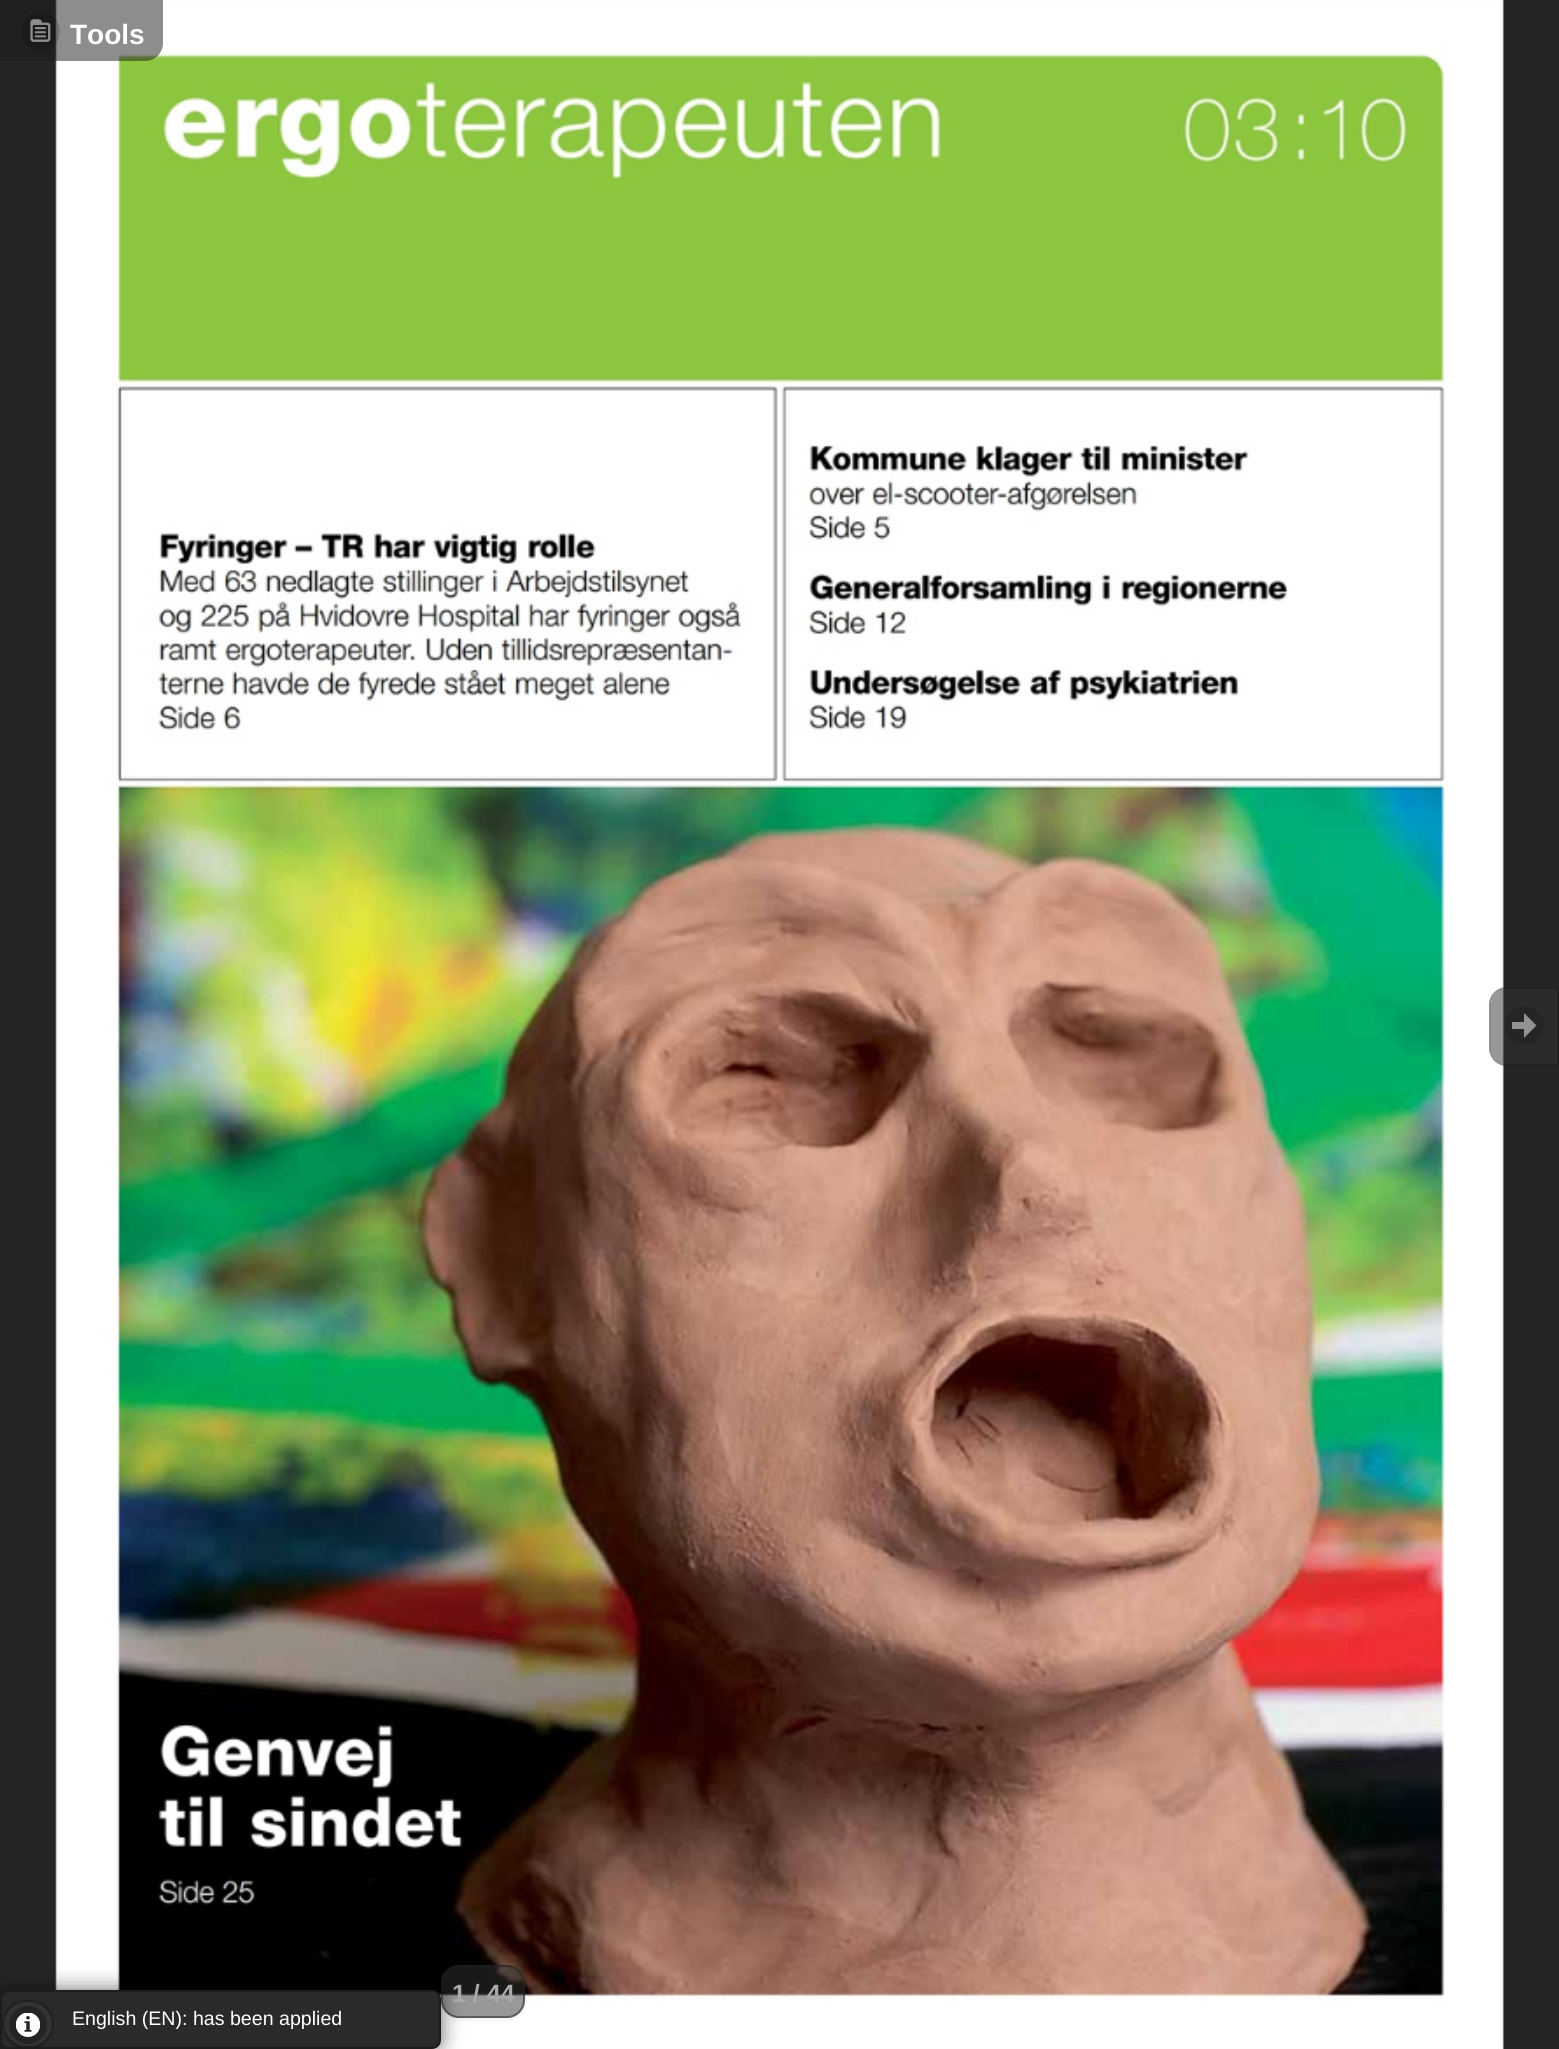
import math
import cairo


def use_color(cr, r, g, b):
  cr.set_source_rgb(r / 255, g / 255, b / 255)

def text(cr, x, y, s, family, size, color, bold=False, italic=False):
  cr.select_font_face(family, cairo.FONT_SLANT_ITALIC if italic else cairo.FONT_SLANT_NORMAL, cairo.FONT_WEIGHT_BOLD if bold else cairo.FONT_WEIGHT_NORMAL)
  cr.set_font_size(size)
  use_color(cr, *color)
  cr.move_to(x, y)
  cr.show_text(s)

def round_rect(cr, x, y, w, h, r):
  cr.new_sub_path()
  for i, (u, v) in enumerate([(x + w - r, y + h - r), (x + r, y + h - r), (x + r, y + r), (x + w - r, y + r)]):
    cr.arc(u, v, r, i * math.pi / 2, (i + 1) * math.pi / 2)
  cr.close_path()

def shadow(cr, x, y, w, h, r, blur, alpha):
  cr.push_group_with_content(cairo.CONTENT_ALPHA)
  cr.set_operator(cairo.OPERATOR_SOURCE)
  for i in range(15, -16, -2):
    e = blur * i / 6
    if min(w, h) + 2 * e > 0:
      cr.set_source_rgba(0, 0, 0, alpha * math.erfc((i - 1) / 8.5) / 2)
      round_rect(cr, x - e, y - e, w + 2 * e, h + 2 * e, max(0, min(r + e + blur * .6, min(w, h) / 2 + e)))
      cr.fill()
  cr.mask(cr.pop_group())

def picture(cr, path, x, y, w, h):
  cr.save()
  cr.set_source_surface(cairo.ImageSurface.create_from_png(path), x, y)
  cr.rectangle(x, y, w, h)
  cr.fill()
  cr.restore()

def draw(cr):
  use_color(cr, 37, 37, 37)
  cr.paint()
  picture(cr, "img_01.png", 55, 0, 1449, 2049)
  cr.set_source_rgba(0.2, 0.2, 0.2, 0.5)
  cr.new_path()
  cr.move_to(1507, 989)
  cr.line_to(1558, 989)
  cr.line_to(1558, 1064)
  cr.line_to(1507, 1064)
  cr.curve_to(1498, 1064, 1491, 1057, 1491, 1048)
  cr.line_to(1491, 1005)
  cr.curve_to(1491, 996, 1498, 989, 1507, 989)
  cr.close_path()
  cr.fill()
  cr.new_path()
  cr.move_to(1507, 988)
  cr.line_to(1558, 988)
  cr.line_to(1558, 1065)
  cr.line_to(1507, 1065)
  cr.curve_to(1497.5, 1065, 1490, 1057.5, 1490, 1048)
  cr.line_to(1490, 1005)
  cr.curve_to(1490, 995.5, 1497.5, 988, 1507, 988)
  cr.close_path()
  cr.set_source_rgba(0.122, 0.122, 0.122, 0.5)
  cr.stroke()
  use_color(cr, 37, 37, 37)
  cr.arc(1524.5, 1025.5, 19.5, 0, 2 * math.pi)
  cr.fill()
  use_color(cr, 146, 146, 146)
  cr.new_path()
  cr.move_to(1536.5, 1025.5)
  cr.line_to(1524, 1013)
  cr.line_to(1524, 1022)
  cr.line_to(1512, 1022)
  cr.line_to(1512, 1029)
  cr.line_to(1524, 1029)
  cr.line_to(1524, 1038)
  cr.close_path()
  cr.fill()
  cr.set_source_rgba(0.114, 0.114, 0.114, 0.5)
  cr.new_path()
  cr.move_to(0, 0)
  cr.line_to(163, 0)
  cr.line_to(163, 43)
  cr.curve_to(163, 53, 155, 61, 145, 61)
  cr.line_to(0, 61)
  cr.close_path()
  cr.fill()
  cr.set_source_rgba(0, 0, 0, 0.15)
  cr.arc(40.5, 31.5, 19.5, 0, 2 * math.pi)
  cr.fill()
  picture(cr, "img_02.png", 30, 19, 21, 23)
  cr.save()
  cr.set_fill_rule(cairo.FILL_RULE_EVEN_ODD)
  cr.new_path()
  cr.move_to(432, 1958)
  cr.line_to(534, 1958)
  cr.line_to(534, 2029)
  cr.line_to(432, 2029)
  cr.close_path()
  cr.move_to(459, 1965)
  cr.line_to(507, 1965)
  cr.curve_to(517, 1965, 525, 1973, 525, 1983)
  cr.line_to(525, 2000)
  cr.curve_to(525, 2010, 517, 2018, 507, 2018)
  cr.line_to(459, 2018)
  cr.curve_to(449, 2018, 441, 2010, 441, 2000)
  cr.line_to(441, 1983)
  cr.curve_to(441, 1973, 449, 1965, 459, 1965)
  cr.close_path()
  cr.clip()
  use_color(cr, 0, 0, 0)
  shadow(cr, 441, 1967, 84, 53, 18, 2.5, 0.07)
  cr.restore()
  cr.set_source_rgba(0.2, 0.2, 0.2, 0.5)
  round_rect(cr, 441, 1965, 84, 53, 18)
  cr.fill()
  round_rect(cr, 442, 1966, 82, 51, 17)
  cr.set_source_rgba(0.122, 0.122, 0.122, 0.5)
  cr.stroke()
  use_color(cr, 0, 0, 0)
  shadow(cr, 0, 1990, 441, 59, 9, 10.5, 0.6)
  use_color(cr, 42, 42, 42)
  round_rect(cr, 1, 1991, 439, 57, 8)
  cr.fill_preserve()
  use_color(cr, 29, 29, 29)
  cr.stroke()
  use_color(cr, 51, 51, 51)
  round_rect(cr, 3, 2001, 50, 46, 23)
  cr.fill_preserve()
  use_color(cr, 31, 31, 31)
  cr.stroke()
  use_color(cr, 36, 36, 36)
  cr.arc(28, 2025, 19, 0, 2 * math.pi)
  cr.fill()
  picture(cr, "img_03.png", 16, 2013, 24, 24)
  text(cr, 70, 44, "Tools", "Liberation Sans", 28, (255, 255, 255), bold=True)
  text(cr, 452, 2002, "1 / 44", "Liberation Sans", 25, (169, 169, 169), bold=True)
  text(cr, 72, 2025, "English (EN): has been applied", "Liberation Sans", 19.6, (255, 255, 255))


surface = cairo.ImageSurface(cairo.FORMAT_RGB24, 1559, 2049)
cr = cairo.Context(surface)
options = cairo.FontOptions()
options.set_hint_metrics(cairo.HINT_METRICS_OFF)
options.set_hint_style(cairo.HINT_STYLE_NONE)
cr.set_font_options(options)
cr.set_miter_limit(4)
draw(cr)
surface.write_to_png("out.png")
